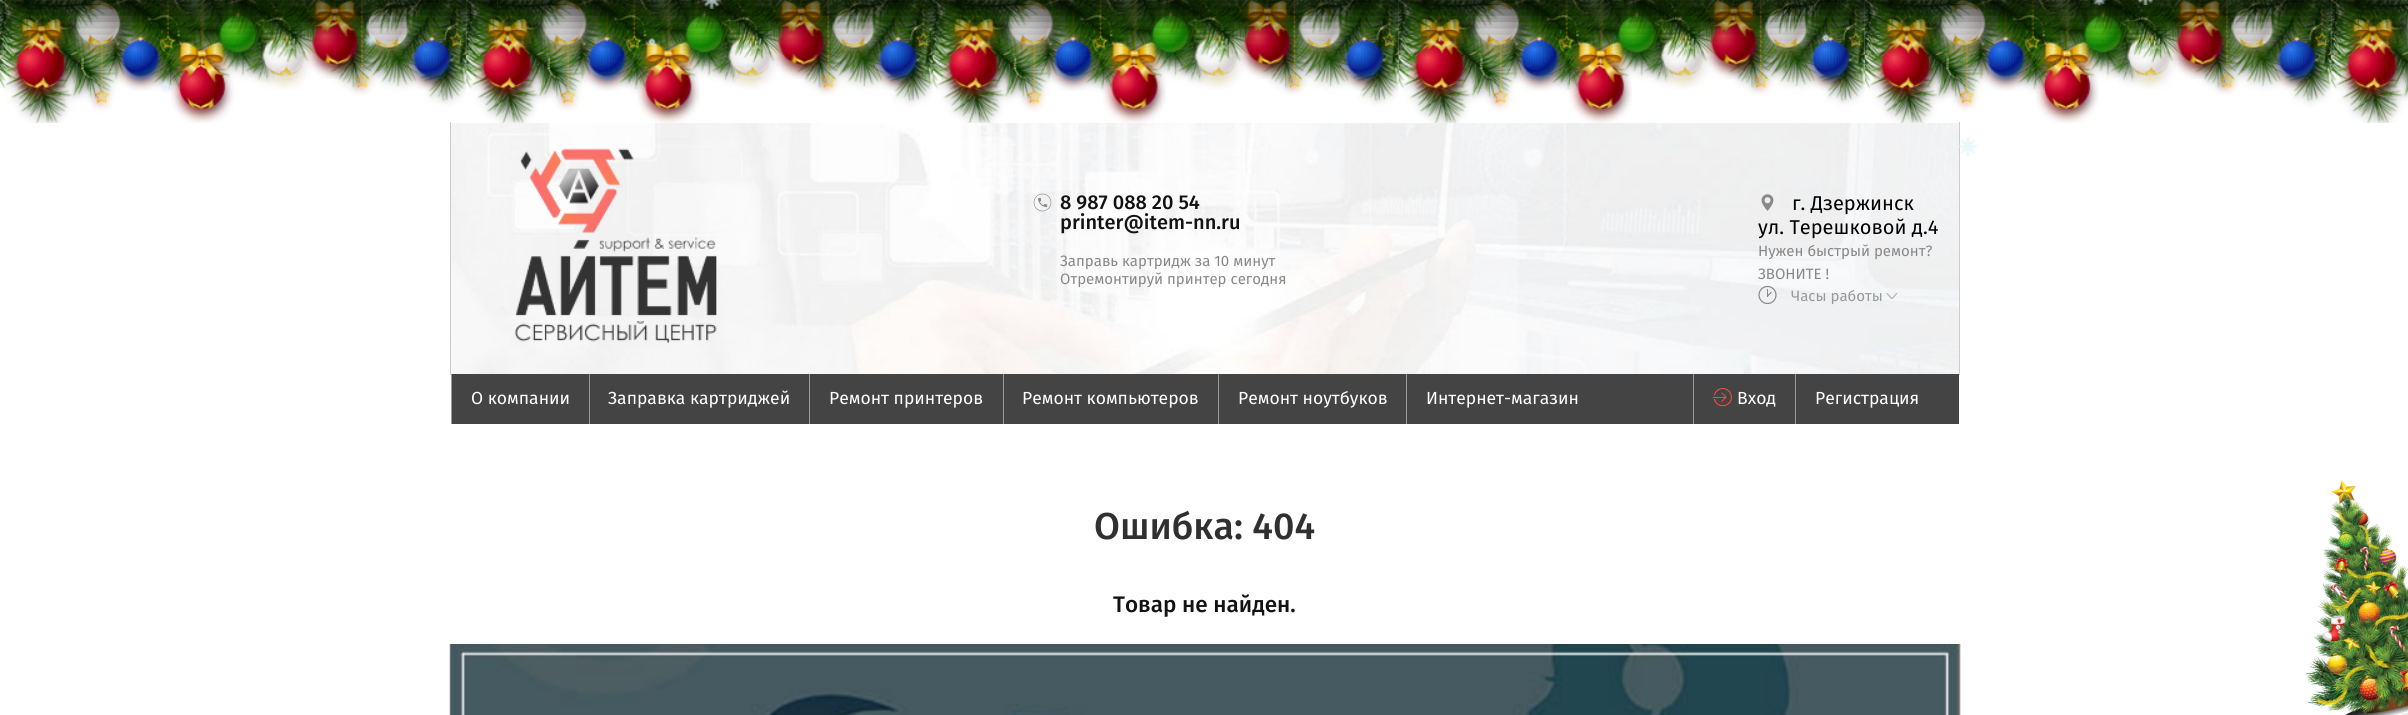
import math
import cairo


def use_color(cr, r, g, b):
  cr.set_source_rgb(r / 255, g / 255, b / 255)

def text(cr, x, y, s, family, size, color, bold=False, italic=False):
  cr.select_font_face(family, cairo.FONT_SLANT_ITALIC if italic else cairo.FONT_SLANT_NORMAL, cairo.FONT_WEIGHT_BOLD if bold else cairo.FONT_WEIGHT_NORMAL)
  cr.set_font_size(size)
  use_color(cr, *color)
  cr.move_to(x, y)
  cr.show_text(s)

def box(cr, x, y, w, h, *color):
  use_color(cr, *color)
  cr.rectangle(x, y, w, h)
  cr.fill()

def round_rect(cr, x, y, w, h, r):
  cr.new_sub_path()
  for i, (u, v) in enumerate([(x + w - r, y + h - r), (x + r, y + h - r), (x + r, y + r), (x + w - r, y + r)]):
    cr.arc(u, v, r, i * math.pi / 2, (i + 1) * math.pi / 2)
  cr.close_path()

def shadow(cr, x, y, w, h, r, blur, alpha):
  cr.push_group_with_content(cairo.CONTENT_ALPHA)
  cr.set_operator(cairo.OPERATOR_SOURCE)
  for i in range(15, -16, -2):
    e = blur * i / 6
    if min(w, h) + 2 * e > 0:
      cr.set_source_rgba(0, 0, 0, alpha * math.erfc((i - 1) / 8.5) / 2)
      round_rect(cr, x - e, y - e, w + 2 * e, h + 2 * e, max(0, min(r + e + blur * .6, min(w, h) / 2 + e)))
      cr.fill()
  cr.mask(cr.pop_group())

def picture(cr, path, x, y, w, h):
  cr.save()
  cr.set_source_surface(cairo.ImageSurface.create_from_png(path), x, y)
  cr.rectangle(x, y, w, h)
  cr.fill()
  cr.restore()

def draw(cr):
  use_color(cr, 255, 255, 255)
  cr.paint()
  picture(cr, "img_09.png", 0, 0, 2408, 123)
  picture(cr, "img_11.png", 8, 0, 65, 102)
  picture(cr, "img_10.png", 0, 0, 32, 89)
  picture(cr, "img_13.png", 67, 0, 62, 58)
  picture(cr, "img_12.png", 31, 0, 76, 33)
  picture(cr, "img_14.png", 171, 0, 63, 123)
  picture(cr, "img_15.png", 212, 0, 50, 67)
  picture(cr, "img_21.png", 255, 7, 56, 83)
  picture(cr, "img_16.png", 221, 0, 36, 36)
  picture(cr, "img_18.png", 304, 0, 61, 79)
  picture(cr, "img_17.png", 256, 0, 64, 63)
  picture(cr, "img_19.png", 359, 0, 57, 61)
  picture(cr, "img_20.png", 115, 11, 51, 80)
  picture(cr, "img_24.png", 406, 12, 52, 79)
  picture(cr, "img_22.png", 361, 0, 98, 35)
  picture(cr, "img_23.png", 458, 0, 9, 86)
  picture(cr, "img_26.png", 474, 0, 65, 102)
  picture(cr, "img_25.png", 466, 0, 33, 89)
  picture(cr, "img_28.png", 534, 0, 61, 58)
  picture(cr, "img_27.png", 498, 0, 76, 33)
  picture(cr, "img_29.png", 637, 0, 63, 123)
  picture(cr, "img_30.png", 678, 0, 50, 67)
  picture(cr, "img_36.png", 722, 7, 56, 83)
  picture(cr, "img_31.png", 687, 0, 36, 36)
  picture(cr, "img_33.png", 771, 0, 60, 79)
  picture(cr, "img_32.png", 722, 0, 63, 63)
  picture(cr, "img_34.png", 825, 0, 57, 61)
  picture(cr, "img_35.png", 581, 11, 51, 80)
  picture(cr, "img_39.png", 873, 12, 51, 79)
  picture(cr, "img_37.png", 827, 0, 99, 35)
  picture(cr, "img_38.png", 925, 0, 8, 86)
  picture(cr, "img_41.png", 941, 0, 64, 102)
  picture(cr, "img_40.png", 932, 0, 33, 89)
  picture(cr, "img_43.png", 1000, 0, 61, 58)
  picture(cr, "img_42.png", 963, 0, 77, 33)
  picture(cr, "img_44.png", 1103, 0, 63, 123)
  picture(cr, "img_45.png", 1144, 0, 51, 67)
  picture(cr, "img_51.png", 1188, 7, 56, 83)
  picture(cr, "img_46.png", 1154, 0, 36, 36)
  picture(cr, "img_48.png", 1237, 0, 61, 79)
  picture(cr, "img_47.png", 1188, 0, 64, 63)
  picture(cr, "img_49.png", 1292, 0, 57, 61)
  picture(cr, "img_50.png", 1047, 11, 51, 80)
  picture(cr, "img_54.png", 1339, 12, 51, 79)
  picture(cr, "img_52.png", 1294, 0, 98, 35)
  picture(cr, "img_53.png", 1390, 0, 9, 86)
  picture(cr, "img_56.png", 1407, 0, 65, 102)
  picture(cr, "img_55.png", 1398, 0, 33, 89)
  picture(cr, "img_58.png", 1466, 0, 61, 58)
  picture(cr, "img_57.png", 1429, 0, 77, 33)
  picture(cr, "img_59.png", 1569, 0, 63, 123)
  picture(cr, "img_60.png", 1611, 0, 50, 67)
  picture(cr, "img_66.png", 1654, 7, 57, 83)
  picture(cr, "img_61.png", 1620, 0, 36, 36)
  picture(cr, "img_63.png", 1703, 0, 61, 79)
  picture(cr, "img_62.png", 1655, 0, 63, 63)
  picture(cr, "img_64.png", 1758, 0, 57, 61)
  picture(cr, "img_65.png", 1513, 11, 52, 80)
  picture(cr, "img_69.png", 1805, 12, 52, 79)
  picture(cr, "img_67.png", 1760, 0, 98, 35)
  picture(cr, "img_68.png", 1857, 0, 9, 86)
  picture(cr, "img_71.png", 1873, 0, 65, 102)
  picture(cr, "img_70.png", 1865, 0, 32, 89)
  picture(cr, "img_73.png", 1932, 0, 62, 58)
  picture(cr, "img_72.png", 1896, 0, 76, 33)
  picture(cr, "img_74.png", 2036, 0, 63, 123)
  picture(cr, "img_75.png", 2077, 0, 50, 67)
  picture(cr, "img_81.png", 2120, 7, 56, 83)
  picture(cr, "img_76.png", 2086, 0, 36, 37)
  picture(cr, "img_78.png", 2169, 0, 61, 79)
  picture(cr, "img_77.png", 2121, 0, 63, 63)
  picture(cr, "img_79.png", 2224, 0, 57, 61)
  picture(cr, "img_80.png", 1980, 11, 51, 80)
  picture(cr, "img_84.png", 2271, 12, 52, 79)
  picture(cr, "img_82.png", 2226, 0, 98, 35)
  picture(cr, "img_83.png", 2323, 0, 9, 86)
  picture(cr, "img_86.png", 2339, 0, 65, 102)
  picture(cr, "img_85.png", 2331, 0, 32, 89)
  picture(cr, "img_88.png", 2399, 11, 9, 39)
  picture(cr, "img_87.png", 2362, 0, 46, 33)
  use_color(cr, 0, 0, 0)
  shadow(cr, 0, -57, 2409, 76, 0, 19, 0.75)
  picture(cr, "img_01.png", 702, 0, 20, 9)
  picture(cr, "img_02.png", 2092, 0, 14, 6)
  picture(cr, "img_03.png", 2137, 0, 17, 5)
  picture(cr, "img_04.png", 363, 33, 14, 14)
  picture(cr, "img_05.png", 647, 37, 9, 9)
  picture(cr, "img_06.png", 1821, 33, 9, 9)
  picture(cr, "img_07.png", 160, 79, 12, 14)
  picture(cr, "img_89.png", 450, 123, 1510, 251)
  use_color(cr, 204, 204, 204)
  cr.set_fill_rule(cairo.FILL_RULE_EVEN_ODD)
  cr.new_path()
  cr.move_to(450, 122)
  cr.line_to(1960, 122)
  cr.line_to(1960, 372)
  cr.curve_to(1960, 376, 1957, 379, 1954, 379)
  cr.line_to(456, 379)
  cr.curve_to(453, 379, 450, 376, 450, 372)
  cr.close_path()
  cr.move_to(451, 122)
  cr.line_to(1959, 122)
  cr.line_to(1959, 372)
  cr.curve_to(1959, 375, 1957, 378, 1954, 378)
  cr.line_to(456, 378)
  cr.curve_to(453, 378, 451, 375, 451, 372)
  cr.close_path()
  cr.fill()
  picture(cr, "img_08.png", 1959, 137, 19, 20)
  picture(cr, "img_90.png", 514, 148, 203, 195)
  picture(cr, "img_91.png", 1033, 193, 19, 19)
  picture(cr, "img_92.png", 1761, 194, 13, 17)
  picture(cr, "img_93.png", 1758, 285, 19, 20)
  picture(cr, "img_94.png", 1886, 293, 12, 6)
  box(cr, 450, 374, 1510, 5, 255, 255, 255)
  box(cr, 1959, 374, 1, 1, 204, 204, 204)
  cr.arc(450.5, 374.5, 0.5, 0, 2 * math.pi)
  cr.fill()
  box(cr, 452, 374, 1507, 50, 68, 68, 68)
  box(cr, 451, 374, 1, 50, 153, 153, 153)
  box(cr, 589, 374, 1, 50, 153, 153, 153)
  box(cr, 809, 374, 1, 50, 153, 153, 153)
  box(cr, 1003, 374, 1, 50, 153, 153, 153)
  box(cr, 1218, 374, 1, 50, 153, 153, 153)
  box(cr, 1406, 374, 1, 50, 153, 153, 153)
  box(cr, 1693, 374, 1, 50, 153, 153, 153)
  picture(cr, "img_95.png", 1713, 388, 19, 19)
  box(cr, 1795, 374, 1, 50, 153, 153, 153)
  picture(cr, "img_96.png", 449, 644, 1512, 71)
  picture(cr, "img_97.png", 2305, 480, 103, 235)
  text(cr, 1060, 209, "8 987 088 20 54", "Fira Sans Medium", 20, (18, 18, 18))
  text(cr, 1060, 229, "printer@item-nn.ru", "Fira Sans Medium", 20, (18, 18, 18))
  text(cr, 1060, 266, "Заправь картридж за 10 минут", "Fira Sans", 15, (136, 136, 136))
  text(cr, 1060, 284, "Отремонтируй принтер сегодня", "Fira Sans", 15, (136, 136, 136))
  text(cr, 1792, 210, "г. Дзержинск", "Fira Sans", 20, (0, 0, 0))
  text(cr, 1758, 234, "ул. Терешковой д.4", "Fira Sans", 20, (0, 0, 0))
  text(cr, 1758, 256, "Нужен быстрый ремонт?", "Fira Sans", 15, (136, 136, 136))
  text(cr, 1758, 279, "ЗВОНИТЕ !", "Fira Sans", 15, (136, 136, 136))
  text(cr, 1791, 301, "Часы работы", "Fira Sans", 15, (153, 153, 153))
  text(cr, 471, 404, "О компании", "Fira Sans", 17.5, (255, 255, 255))
  text(cr, 608, 404, "Заправка картриджей", "Fira Sans", 17.5, (255, 255, 255))
  text(cr, 829, 404, "Ремонт принтеров", "Fira Sans", 17.5, (255, 255, 255))
  text(cr, 1022, 404, "Ремонт компьютеров", "Fira Sans", 17.5, (255, 255, 255))
  text(cr, 1238, 404, "Ремонт ноутбуков", "Fira Sans", 17.5, (255, 255, 255))
  text(cr, 1426, 404, "Интернет-магазин", "Fira Sans", 17.5, (255, 255, 255))
  text(cr, 1737, 404, "Вход", "Fira Sans", 17.5, (255, 255, 255))
  text(cr, 1815, 404, "Регистрация", "Fira Sans", 17.5, (255, 255, 255))
  text(cr, 1094, 539, "Ошибка: 404", "Fira Sans Medium", 37.5, (48, 48, 48))
  text(cr, 1113, 612, "Товар не найден.", "Fira Sans Medium", 22.5, (18, 18, 18))


surface = cairo.ImageSurface(cairo.FORMAT_RGB24, 2408, 715)
cr = cairo.Context(surface)
options = cairo.FontOptions()
options.set_hint_metrics(cairo.HINT_METRICS_OFF)
options.set_hint_style(cairo.HINT_STYLE_NONE)
cr.set_font_options(options)
cr.set_miter_limit(4)
draw(cr)
surface.write_to_png("out.png")
